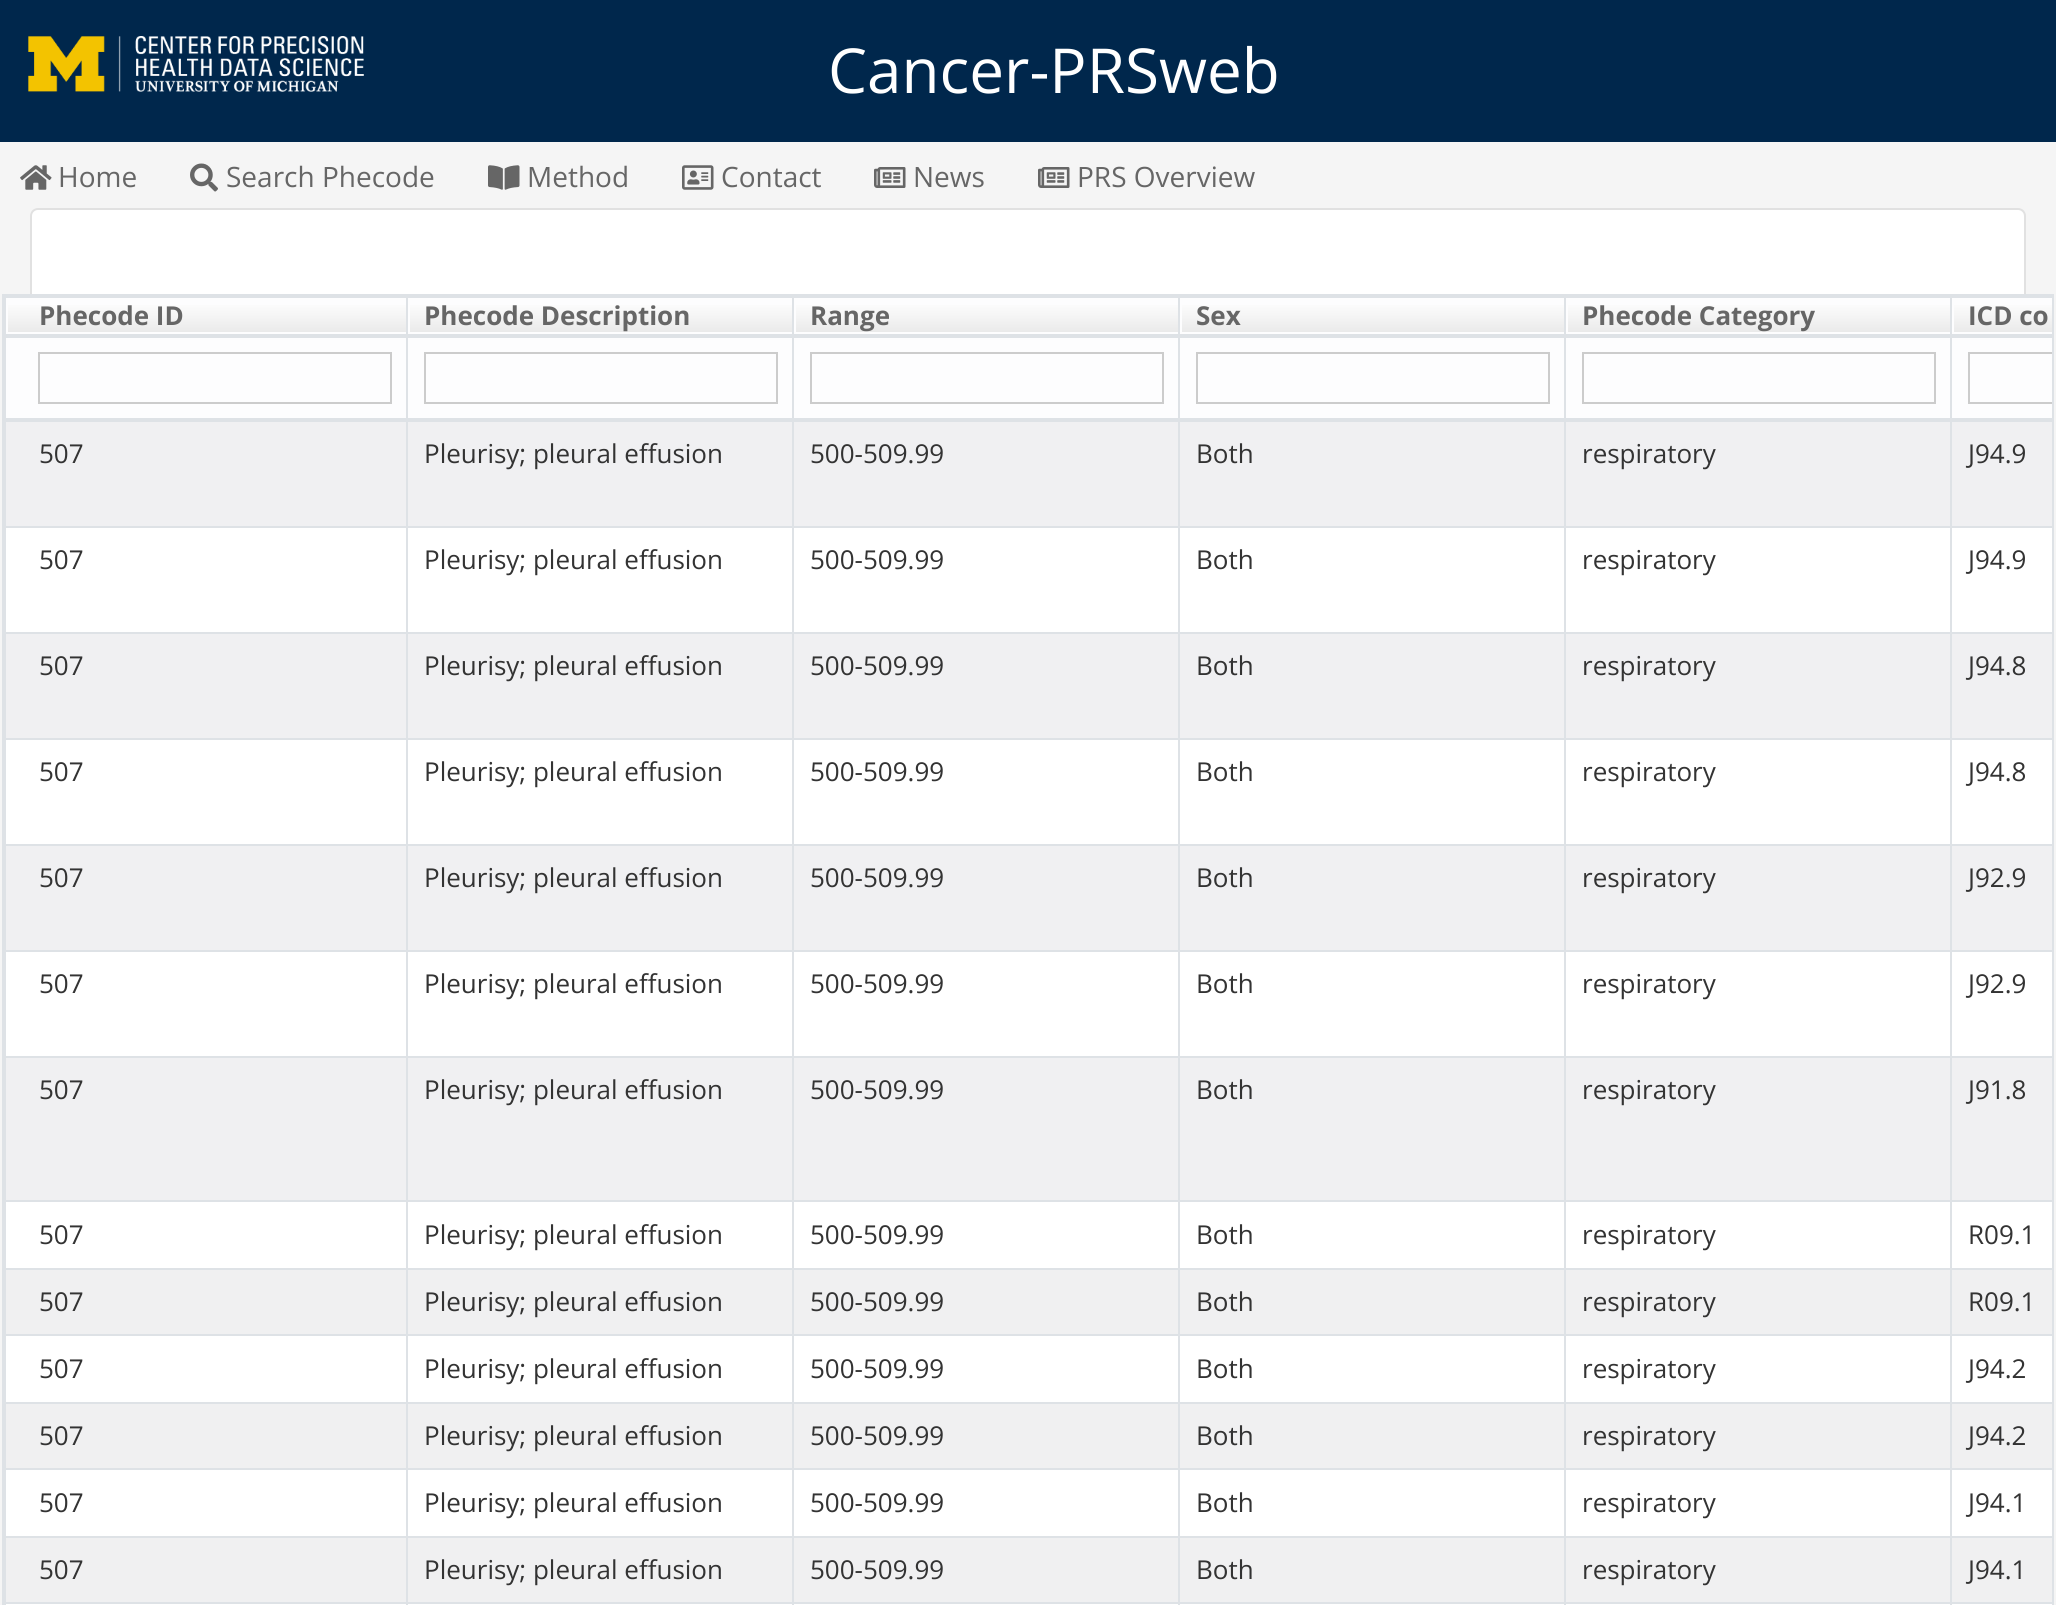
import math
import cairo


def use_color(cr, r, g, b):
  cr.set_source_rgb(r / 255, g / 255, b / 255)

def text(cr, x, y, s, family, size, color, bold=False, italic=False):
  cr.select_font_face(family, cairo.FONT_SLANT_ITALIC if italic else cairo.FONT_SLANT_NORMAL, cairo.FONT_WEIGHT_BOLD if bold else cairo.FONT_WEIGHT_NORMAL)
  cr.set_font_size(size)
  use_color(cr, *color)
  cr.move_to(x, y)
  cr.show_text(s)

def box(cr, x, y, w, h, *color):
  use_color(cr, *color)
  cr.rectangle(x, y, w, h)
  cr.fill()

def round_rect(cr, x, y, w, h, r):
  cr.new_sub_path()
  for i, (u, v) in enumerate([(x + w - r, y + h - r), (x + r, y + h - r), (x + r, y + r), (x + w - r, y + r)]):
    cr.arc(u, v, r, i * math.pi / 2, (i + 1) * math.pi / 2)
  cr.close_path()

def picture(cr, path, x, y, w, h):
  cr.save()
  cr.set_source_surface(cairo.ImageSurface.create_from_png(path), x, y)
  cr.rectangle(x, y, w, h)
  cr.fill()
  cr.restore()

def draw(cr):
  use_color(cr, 245, 245, 245)
  cr.paint()
  box(cr, 0, 0, 2056, 142, 0, 39, 76)
  picture(cr, "img_01.png", 28, 36, 336, 56)
  picture(cr, "img_02.png", 20, 165, 32, 25)
  picture(cr, "img_03.png", 190, 163, 28, 29)
  picture(cr, "img_04.png", 488, 165, 32, 25)
  picture(cr, "img_05.png", 682, 165, 32, 25)
  picture(cr, "img_06.png", 874, 167, 32, 21)
  picture(cr, "img_06.png", 1038, 167, 32, 21)
  use_color(cr, 255, 255, 255)
  round_rect(cr, 30, 208, 1996, 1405, 8)
  cr.fill()
  round_rect(cr, 31, 209, 1994, 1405, 7)
  cr.set_source_rgba(0, 0, 0, 0.12)
  cr.stroke()
  cr.rectangle(3, 295, 2050, 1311)
  use_color(cr, 222, 226, 230)
  cr.stroke()
  box(cr, 6, 298, 2046, 120, 253, 253, 254)
  gradient = cairo.LinearGradient(8, 300, 8, 332)
  gradient.add_color_stop_rgba(0, 1, 1, 1, 1)
  gradient.add_color_stop_rgba(1, 0.918, 0.918, 0.918, 1)
  cr.set_source(gradient)
  cr.rectangle(8, 305, 398, 27)
  cr.fill()
  box(cr, 1950, 296, 102, 2, 222, 226, 230)
  box(cr, 6, 422, 2046, 104, 240, 240, 242)
  box(cr, 1950, 526, 102, 2, 222, 226, 230)
  box(cr, 6, 528, 2046, 104, 255, 255, 255)
  box(cr, 1950, 632, 102, 2, 222, 226, 230)
  box(cr, 6, 634, 2046, 104, 240, 240, 242)
  box(cr, 1950, 738, 102, 2, 222, 226, 230)
  box(cr, 6, 740, 2046, 104, 255, 255, 255)
  box(cr, 1950, 844, 102, 2, 222, 226, 230)
  box(cr, 6, 846, 2046, 104, 240, 240, 242)
  box(cr, 1950, 950, 102, 2, 222, 226, 230)
  box(cr, 6, 952, 2046, 104, 255, 255, 255)
  box(cr, 1950, 1056, 102, 2, 222, 226, 230)
  box(cr, 6, 1058, 2046, 142, 240, 240, 242)
  box(cr, 1950, 1200, 102, 2, 222, 226, 230)
  box(cr, 6, 1202, 2046, 66, 255, 255, 255)
  box(cr, 1950, 1268, 102, 2, 222, 226, 230)
  box(cr, 6, 1270, 2046, 64, 240, 240, 241)
  box(cr, 1950, 1334, 102, 2, 222, 226, 230)
  box(cr, 6, 1336, 2046, 66, 255, 255, 255)
  box(cr, 1950, 1402, 102, 2, 222, 226, 230)
  box(cr, 6, 1404, 2046, 64, 240, 240, 241)
  box(cr, 1950, 1468, 102, 2, 222, 226, 230)
  box(cr, 6, 1470, 2046, 66, 255, 255, 255)
  box(cr, 1950, 1536, 102, 2, 222, 226, 230)
  box(cr, 6, 1538, 2046, 64, 240, 240, 241)
  box(cr, 1950, 1602, 102, 2, 222, 226, 230)
  box(cr, 6, 1604, 2046, 1, 255, 255, 255)
  box(cr, 1950, 1602, 2, 3, 222, 226, 230)
  box(cr, 1564, 1602, 388, 2, 222, 226, 230)
  box(cr, 1950, 1536, 2, 68, 222, 226, 230)
  box(cr, 1564, 1536, 388, 2, 222, 226, 230)
  box(cr, 1950, 1468, 2, 70, 222, 226, 230)
  box(cr, 1564, 1468, 388, 2, 222, 226, 230)
  box(cr, 1950, 1402, 2, 68, 222, 226, 230)
  box(cr, 1564, 1402, 388, 2, 222, 226, 230)
  box(cr, 1950, 1334, 2, 70, 222, 226, 230)
  box(cr, 1564, 1334, 388, 2, 222, 226, 230)
  box(cr, 1950, 1268, 2, 68, 222, 226, 230)
  box(cr, 1564, 1268, 388, 2, 222, 226, 230)
  box(cr, 1950, 1200, 2, 70, 222, 226, 230)
  box(cr, 1564, 1200, 388, 2, 222, 226, 230)
  box(cr, 1950, 1056, 2, 146, 222, 226, 230)
  box(cr, 1564, 1056, 388, 2, 222, 226, 230)
  box(cr, 1950, 950, 2, 108, 222, 226, 230)
  box(cr, 1564, 950, 388, 2, 222, 226, 230)
  box(cr, 1950, 844, 2, 108, 222, 226, 230)
  box(cr, 1564, 844, 388, 2, 222, 226, 230)
  box(cr, 1950, 738, 2, 108, 222, 226, 230)
  box(cr, 1564, 738, 388, 2, 222, 226, 230)
  box(cr, 1950, 632, 2, 108, 222, 226, 230)
  box(cr, 1564, 632, 388, 2, 222, 226, 230)
  box(cr, 1950, 526, 2, 108, 222, 226, 230)
  box(cr, 1564, 526, 388, 2, 222, 226, 230)
  box(cr, 1950, 336, 2, 192, 222, 226, 230)
  box(cr, 1950, 296, 2, 42, 222, 226, 230)
  box(cr, 1564, 296, 388, 2, 222, 226, 230)
  box(cr, 1564, 1602, 2, 3, 222, 226, 230)
  box(cr, 1178, 1602, 388, 2, 222, 226, 230)
  box(cr, 1564, 1536, 2, 68, 222, 226, 230)
  box(cr, 1178, 1536, 388, 2, 222, 226, 230)
  box(cr, 1564, 1468, 2, 70, 222, 226, 230)
  box(cr, 1178, 1468, 388, 2, 222, 226, 230)
  box(cr, 1564, 1402, 2, 68, 222, 226, 230)
  box(cr, 1178, 1402, 388, 2, 222, 226, 230)
  box(cr, 1564, 1334, 2, 70, 222, 226, 230)
  box(cr, 1178, 1334, 388, 2, 222, 226, 230)
  box(cr, 1564, 1268, 2, 68, 222, 226, 230)
  box(cr, 1178, 1268, 388, 2, 222, 226, 230)
  box(cr, 1564, 1200, 2, 70, 222, 226, 230)
  box(cr, 1178, 1200, 388, 2, 222, 226, 230)
  box(cr, 1564, 1056, 2, 146, 222, 226, 230)
  box(cr, 1178, 1056, 388, 2, 222, 226, 230)
  box(cr, 1564, 950, 2, 108, 222, 226, 230)
  box(cr, 1178, 950, 388, 2, 222, 226, 230)
  box(cr, 1564, 844, 2, 108, 222, 226, 230)
  box(cr, 1178, 844, 388, 2, 222, 226, 230)
  box(cr, 1564, 738, 2, 108, 222, 226, 230)
  box(cr, 1178, 738, 388, 2, 222, 226, 230)
  box(cr, 1564, 632, 2, 108, 222, 226, 230)
  box(cr, 1178, 632, 388, 2, 222, 226, 230)
  box(cr, 1564, 526, 2, 108, 222, 226, 230)
  box(cr, 1178, 526, 388, 2, 222, 226, 230)
  box(cr, 1564, 336, 2, 192, 222, 226, 230)
  box(cr, 1564, 296, 2, 42, 222, 226, 230)
  box(cr, 1178, 296, 388, 2, 222, 226, 230)
  box(cr, 1178, 1602, 2, 3, 222, 226, 230)
  box(cr, 792, 1602, 388, 2, 222, 226, 230)
  box(cr, 1178, 1536, 2, 68, 222, 226, 230)
  box(cr, 792, 1536, 388, 2, 222, 226, 230)
  box(cr, 1178, 1468, 2, 70, 222, 226, 230)
  box(cr, 792, 1468, 388, 2, 222, 226, 230)
  box(cr, 1178, 1402, 2, 68, 222, 226, 230)
  box(cr, 792, 1402, 388, 2, 222, 226, 230)
  box(cr, 1178, 1334, 2, 70, 222, 226, 230)
  box(cr, 792, 1334, 388, 2, 222, 226, 230)
  box(cr, 1178, 1268, 2, 68, 222, 226, 230)
  box(cr, 792, 1268, 388, 2, 222, 226, 230)
  box(cr, 1178, 1200, 2, 70, 222, 226, 230)
  box(cr, 792, 1200, 388, 2, 222, 226, 230)
  box(cr, 1178, 1056, 2, 146, 222, 226, 230)
  box(cr, 792, 1056, 388, 2, 222, 226, 230)
  box(cr, 1178, 950, 2, 108, 222, 226, 230)
  box(cr, 792, 950, 388, 2, 222, 226, 230)
  box(cr, 1178, 844, 2, 108, 222, 226, 230)
  box(cr, 792, 844, 388, 2, 222, 226, 230)
  box(cr, 1178, 738, 2, 108, 222, 226, 230)
  box(cr, 792, 738, 388, 2, 222, 226, 230)
  box(cr, 1178, 632, 2, 108, 222, 226, 230)
  box(cr, 792, 632, 388, 2, 222, 226, 230)
  box(cr, 1178, 526, 2, 108, 222, 226, 230)
  box(cr, 792, 526, 388, 2, 222, 226, 230)
  box(cr, 1178, 336, 2, 192, 222, 226, 230)
  box(cr, 1178, 296, 2, 42, 222, 226, 230)
  box(cr, 792, 296, 388, 2, 222, 226, 230)
  box(cr, 792, 1602, 2, 3, 222, 226, 230)
  box(cr, 406, 1602, 388, 2, 222, 226, 230)
  box(cr, 792, 1536, 2, 68, 222, 226, 230)
  box(cr, 406, 1536, 388, 2, 222, 226, 230)
  box(cr, 792, 1468, 2, 70, 222, 226, 230)
  box(cr, 406, 1468, 388, 2, 222, 226, 230)
  box(cr, 792, 1402, 2, 68, 222, 226, 230)
  box(cr, 406, 1402, 388, 2, 222, 226, 230)
  box(cr, 792, 1334, 2, 70, 222, 226, 230)
  box(cr, 406, 1334, 388, 2, 222, 226, 230)
  box(cr, 792, 1268, 2, 68, 222, 226, 230)
  box(cr, 406, 1268, 388, 2, 222, 226, 230)
  box(cr, 792, 1200, 2, 70, 222, 226, 230)
  box(cr, 406, 1200, 388, 2, 222, 226, 230)
  box(cr, 792, 1056, 2, 146, 222, 226, 230)
  box(cr, 406, 1056, 388, 2, 222, 226, 230)
  box(cr, 792, 950, 2, 108, 222, 226, 230)
  box(cr, 406, 950, 388, 2, 222, 226, 230)
  box(cr, 792, 844, 2, 108, 222, 226, 230)
  box(cr, 406, 844, 388, 2, 222, 226, 230)
  box(cr, 792, 738, 2, 108, 222, 226, 230)
  box(cr, 406, 738, 388, 2, 222, 226, 230)
  box(cr, 792, 632, 2, 108, 222, 226, 230)
  box(cr, 406, 632, 388, 2, 222, 226, 230)
  box(cr, 792, 526, 2, 108, 222, 226, 230)
  box(cr, 406, 526, 388, 2, 222, 226, 230)
  box(cr, 792, 336, 2, 192, 222, 226, 230)
  box(cr, 792, 296, 2, 42, 222, 226, 230)
  box(cr, 406, 296, 388, 2, 222, 226, 230)
  box(cr, 406, 1602, 2, 3, 222, 226, 230)
  box(cr, 4, 1602, 404, 2, 222, 226, 230)
  box(cr, 406, 1536, 2, 68, 222, 226, 230)
  box(cr, 4, 1536, 404, 2, 222, 226, 230)
  box(cr, 406, 1468, 2, 70, 222, 226, 230)
  box(cr, 4, 1468, 404, 2, 222, 226, 230)
  box(cr, 406, 1402, 2, 68, 222, 226, 230)
  box(cr, 4, 1402, 404, 2, 222, 226, 230)
  box(cr, 406, 1334, 2, 70, 222, 226, 230)
  box(cr, 4, 1334, 404, 2, 222, 226, 230)
  box(cr, 406, 1268, 2, 68, 222, 226, 230)
  box(cr, 4, 1268, 404, 2, 222, 226, 230)
  box(cr, 406, 1200, 2, 70, 222, 226, 230)
  box(cr, 4, 1200, 404, 2, 222, 226, 230)
  box(cr, 406, 1056, 2, 146, 222, 226, 230)
  box(cr, 4, 1056, 404, 2, 222, 226, 230)
  box(cr, 406, 950, 2, 108, 222, 226, 230)
  box(cr, 4, 950, 404, 2, 222, 226, 230)
  box(cr, 406, 844, 2, 108, 222, 226, 230)
  box(cr, 4, 844, 404, 2, 222, 226, 230)
  box(cr, 406, 738, 2, 108, 222, 226, 230)
  box(cr, 4, 738, 404, 2, 222, 226, 230)
  box(cr, 406, 632, 2, 108, 222, 226, 230)
  box(cr, 4, 632, 404, 2, 222, 226, 230)
  box(cr, 406, 526, 2, 108, 222, 226, 230)
  box(cr, 4, 526, 404, 2, 222, 226, 230)
  box(cr, 406, 336, 2, 192, 222, 226, 230)
  box(cr, 406, 296, 2, 42, 222, 226, 230)
  box(cr, 4, 296, 404, 2, 222, 226, 230)
  box(cr, 4, 1602, 2, 3, 222, 226, 230)
  box(cr, 4, 1536, 2, 68, 222, 226, 230)
  box(cr, 4, 1468, 2, 70, 222, 226, 230)
  box(cr, 4, 1402, 2, 68, 222, 226, 230)
  box(cr, 4, 1334, 2, 70, 222, 226, 230)
  box(cr, 4, 1268, 2, 68, 222, 226, 230)
  box(cr, 4, 1200, 2, 70, 222, 226, 230)
  box(cr, 4, 1056, 2, 146, 222, 226, 230)
  box(cr, 4, 950, 2, 108, 222, 226, 230)
  box(cr, 4, 844, 2, 108, 222, 226, 230)
  box(cr, 4, 738, 2, 108, 222, 226, 230)
  box(cr, 4, 632, 2, 108, 222, 226, 230)
  box(cr, 4, 336, 2, 298, 222, 226, 230)
  box(cr, 4, 296, 2, 42, 222, 226, 230)
  gradient = cairo.LinearGradient(410, 300, 410, 332)
  gradient.add_color_stop_rgba(0, 1, 1, 1, 1)
  gradient.add_color_stop_rgba(1, 0.918, 0.918, 0.918, 1)
  cr.set_source(gradient)
  cr.rectangle(410, 305, 382, 27)
  cr.fill()
  gradient = cairo.LinearGradient(796, 300, 796, 332)
  gradient.add_color_stop_rgba(0, 1, 1, 1, 1)
  gradient.add_color_stop_rgba(1, 0.918, 0.918, 0.918, 1)
  cr.set_source(gradient)
  cr.rectangle(796, 305, 382, 27)
  cr.fill()
  gradient = cairo.LinearGradient(1182, 300, 1182, 332)
  gradient.add_color_stop_rgba(0, 1, 1, 1, 1)
  gradient.add_color_stop_rgba(1, 0.918, 0.918, 0.918, 1)
  cr.set_source(gradient)
  cr.rectangle(1182, 305, 382, 27)
  cr.fill()
  gradient = cairo.LinearGradient(1568, 300, 1568, 332)
  gradient.add_color_stop_rgba(0, 1, 1, 1, 1)
  gradient.add_color_stop_rgba(1, 0.918, 0.918, 0.918, 1)
  cr.set_source(gradient)
  cr.rectangle(1568, 305, 382, 27)
  cr.fill()
  gradient = cairo.LinearGradient(1954, 300, 1954, 332)
  gradient.add_color_stop_rgba(0, 1, 1, 1, 1)
  gradient.add_color_stop_rgba(1, 0.918, 0.918, 0.918, 1)
  cr.set_source(gradient)
  cr.rectangle(1954, 305, 98, 27)
  cr.fill()
  box(cr, 4, 334, 2048, 4, 222, 226, 230)
  box(cr, 4, 418, 2048, 4, 222, 226, 230)
  cr.save()
  cr.rectangle(4, 296, 2048, 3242)
  cr.clip()
  cr.rectangle(1969, 353, 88, 50)
  use_color(cr, 204, 204, 204)
  cr.stroke()
  cr.restore()
  cr.rectangle(39, 353, 352, 50)
  use_color(cr, 204, 204, 204)
  cr.stroke()
  cr.rectangle(425, 353, 352, 50)
  cr.stroke()
  cr.rectangle(811, 353, 352, 50)
  cr.stroke()
  cr.rectangle(1197, 353, 352, 50)
  cr.stroke()
  cr.rectangle(1583, 353, 352, 50)
  cr.stroke()
  text(cr, 828, 93, "Cancer-PRSweb", "Open Sans", 62, (255, 255, 255))
  text(cr, 58, 187, "Home", "Open Sans", 28, (102, 102, 102))
  text(cr, 226, 187, "Search Phecode", "Open Sans", 28, (102, 102, 102))
  text(cr, 527, 187, "Method", "Open Sans", 28, (102, 102, 102))
  text(cr, 721, 187, "Contact", "Open Sans", 28, (102, 102, 102))
  text(cr, 913, 187, "News", "Open Sans", 28, (102, 102, 102))
  text(cr, 1077, 187, "PRS Overview", "Open Sans", 28, (102, 102, 102))
  text(cr, 39, 325, "Phecode ID", "Open Sans", 26, (102, 102, 102), bold=True)
  text(cr, 424, 325, "Phecode Description", "Open Sans", 26, (102, 102, 102), bold=True)
  text(cr, 810, 325, "Range", "Open Sans", 26, (102, 102, 102), bold=True)
  text(cr, 1196, 325, "Sex", "Open Sans", 26, (102, 102, 102), bold=True)
  text(cr, 1582, 325, "Phecode Category", "Open Sans", 26, (102, 102, 102), bold=True)
  text(cr, 1968, 325, "ICD co", "Open Sans", 26, (102, 102, 102), bold=True)
  text(cr, 39, 463, "507", "Open Sans", 26, (51, 51, 51))
  text(cr, 424, 463, "Pleurisy; pleural effusion", "Open Sans", 26, (51, 51, 51))
  text(cr, 810, 463, "500-509.99", "Open Sans", 26, (51, 51, 51))
  text(cr, 1196, 463, "Both", "Open Sans", 26, (51, 51, 51))
  text(cr, 1582, 463, "respiratory", "Open Sans", 26, (51, 51, 51))
  text(cr, 1968, 463, "J94.9", "Open Sans", 26, (51, 51, 51))
  text(cr, 39, 569, "507", "Open Sans", 26, (51, 51, 51))
  text(cr, 424, 569, "Pleurisy; pleural effusion", "Open Sans", 26, (51, 51, 51))
  text(cr, 810, 569, "500-509.99", "Open Sans", 26, (51, 51, 51))
  text(cr, 1196, 569, "Both", "Open Sans", 26, (51, 51, 51))
  text(cr, 1582, 569, "respiratory", "Open Sans", 26, (51, 51, 51))
  text(cr, 1968, 569, "J94.9", "Open Sans", 26, (51, 51, 51))
  text(cr, 39, 675, "507", "Open Sans", 26, (51, 51, 51))
  text(cr, 424, 675, "Pleurisy; pleural effusion", "Open Sans", 26, (51, 51, 51))
  text(cr, 810, 675, "500-509.99", "Open Sans", 26, (51, 51, 51))
  text(cr, 1196, 675, "Both", "Open Sans", 26, (51, 51, 51))
  text(cr, 1582, 675, "respiratory", "Open Sans", 26, (51, 51, 51))
  text(cr, 1968, 675, "J94.8", "Open Sans", 26, (51, 51, 51))
  text(cr, 39, 781, "507", "Open Sans", 26, (51, 51, 51))
  text(cr, 424, 781, "Pleurisy; pleural effusion", "Open Sans", 26, (51, 51, 51))
  text(cr, 810, 781, "500-509.99", "Open Sans", 26, (51, 51, 51))
  text(cr, 1196, 781, "Both", "Open Sans", 26, (51, 51, 51))
  text(cr, 1582, 781, "respiratory", "Open Sans", 26, (51, 51, 51))
  text(cr, 1968, 781, "J94.8", "Open Sans", 26, (51, 51, 51))
  text(cr, 39, 887, "507", "Open Sans", 26, (51, 51, 51))
  text(cr, 424, 887, "Pleurisy; pleural effusion", "Open Sans", 26, (51, 51, 51))
  text(cr, 810, 887, "500-509.99", "Open Sans", 26, (51, 51, 51))
  text(cr, 1196, 887, "Both", "Open Sans", 26, (51, 51, 51))
  text(cr, 1582, 887, "respiratory", "Open Sans", 26, (51, 51, 51))
  text(cr, 1968, 887, "J92.9", "Open Sans", 26, (51, 51, 51))
  text(cr, 39, 993, "507", "Open Sans", 26, (51, 51, 51))
  text(cr, 424, 993, "Pleurisy; pleural effusion", "Open Sans", 26, (51, 51, 51))
  text(cr, 810, 993, "500-509.99", "Open Sans", 26, (51, 51, 51))
  text(cr, 1196, 993, "Both", "Open Sans", 26, (51, 51, 51))
  text(cr, 1582, 993, "respiratory", "Open Sans", 26, (51, 51, 51))
  text(cr, 1968, 993, "J92.9", "Open Sans", 26, (51, 51, 51))
  text(cr, 39, 1099, "507", "Open Sans", 26, (51, 51, 51))
  text(cr, 424, 1099, "Pleurisy; pleural effusion", "Open Sans", 26, (51, 51, 51))
  text(cr, 810, 1099, "500-509.99", "Open Sans", 26, (51, 51, 51))
  text(cr, 1196, 1099, "Both", "Open Sans", 26, (51, 51, 51))
  text(cr, 1582, 1099, "respiratory", "Open Sans", 26, (51, 51, 51))
  text(cr, 1968, 1099, "J91.8", "Open Sans", 26, (51, 51, 51))
  text(cr, 39, 1244, "507", "Open Sans", 26, (51, 51, 51))
  text(cr, 424, 1244, "Pleurisy; pleural effusion", "Open Sans", 26, (51, 51, 51))
  text(cr, 810, 1244, "500-509.99", "Open Sans", 26, (51, 51, 51))
  text(cr, 1196, 1244, "Both", "Open Sans", 26, (51, 51, 51))
  text(cr, 1582, 1244, "respiratory", "Open Sans", 26, (51, 51, 51))
  text(cr, 1968, 1244, "R09.1", "Open Sans", 26, (51, 51, 51))
  text(cr, 39, 1311, "507", "Open Sans", 26, (51, 51, 51))
  text(cr, 424, 1311, "Pleurisy; pleural effusion", "Open Sans", 26, (51, 51, 51))
  text(cr, 810, 1311, "500-509.99", "Open Sans", 26, (51, 51, 51))
  text(cr, 1196, 1311, "Both", "Open Sans", 26, (51, 51, 51))
  text(cr, 1582, 1311, "respiratory", "Open Sans", 26, (51, 51, 51))
  text(cr, 1968, 1311, "R09.1", "Open Sans", 26, (51, 51, 51))
  text(cr, 39, 1378, "507", "Open Sans", 26, (51, 51, 51))
  text(cr, 424, 1378, "Pleurisy; pleural effusion", "Open Sans", 26, (51, 51, 51))
  text(cr, 810, 1378, "500-509.99", "Open Sans", 26, (51, 51, 51))
  text(cr, 1196, 1378, "Both", "Open Sans", 26, (51, 51, 51))
  text(cr, 1582, 1378, "respiratory", "Open Sans", 26, (51, 51, 51))
  text(cr, 1968, 1378, "J94.2", "Open Sans", 26, (51, 51, 51))
  text(cr, 39, 1445, "507", "Open Sans", 26, (51, 51, 51))
  text(cr, 424, 1445, "Pleurisy; pleural effusion", "Open Sans", 26, (51, 51, 51))
  text(cr, 810, 1445, "500-509.99", "Open Sans", 26, (51, 51, 51))
  text(cr, 1196, 1445, "Both", "Open Sans", 26, (51, 51, 51))
  text(cr, 1582, 1445, "respiratory", "Open Sans", 26, (51, 51, 51))
  text(cr, 1968, 1445, "J94.2", "Open Sans", 26, (51, 51, 51))
  text(cr, 39, 1512, "507", "Open Sans", 26, (51, 51, 51))
  text(cr, 424, 1512, "Pleurisy; pleural effusion", "Open Sans", 26, (51, 51, 51))
  text(cr, 810, 1512, "500-509.99", "Open Sans", 26, (51, 51, 51))
  text(cr, 1196, 1512, "Both", "Open Sans", 26, (51, 51, 51))
  text(cr, 1582, 1512, "respiratory", "Open Sans", 26, (51, 51, 51))
  text(cr, 1968, 1512, "J94.1", "Open Sans", 26, (51, 51, 51))
  text(cr, 39, 1579, "507", "Open Sans", 26, (51, 51, 51))
  text(cr, 424, 1579, "Pleurisy; pleural effusion", "Open Sans", 26, (51, 51, 51))
  text(cr, 810, 1579, "500-509.99", "Open Sans", 26, (51, 51, 51))
  text(cr, 1196, 1579, "Both", "Open Sans", 26, (51, 51, 51))
  text(cr, 1582, 1579, "respiratory", "Open Sans", 26, (51, 51, 51))
  text(cr, 1968, 1579, "J94.1", "Open Sans", 26, (51, 51, 51))


surface = cairo.ImageSurface(cairo.FORMAT_RGB24, 2056, 1605)
cr = cairo.Context(surface)
options = cairo.FontOptions()
options.set_hint_metrics(cairo.HINT_METRICS_OFF)
options.set_hint_style(cairo.HINT_STYLE_NONE)
cr.set_font_options(options)
cr.set_miter_limit(4)
draw(cr)
surface.write_to_png("out.png")
